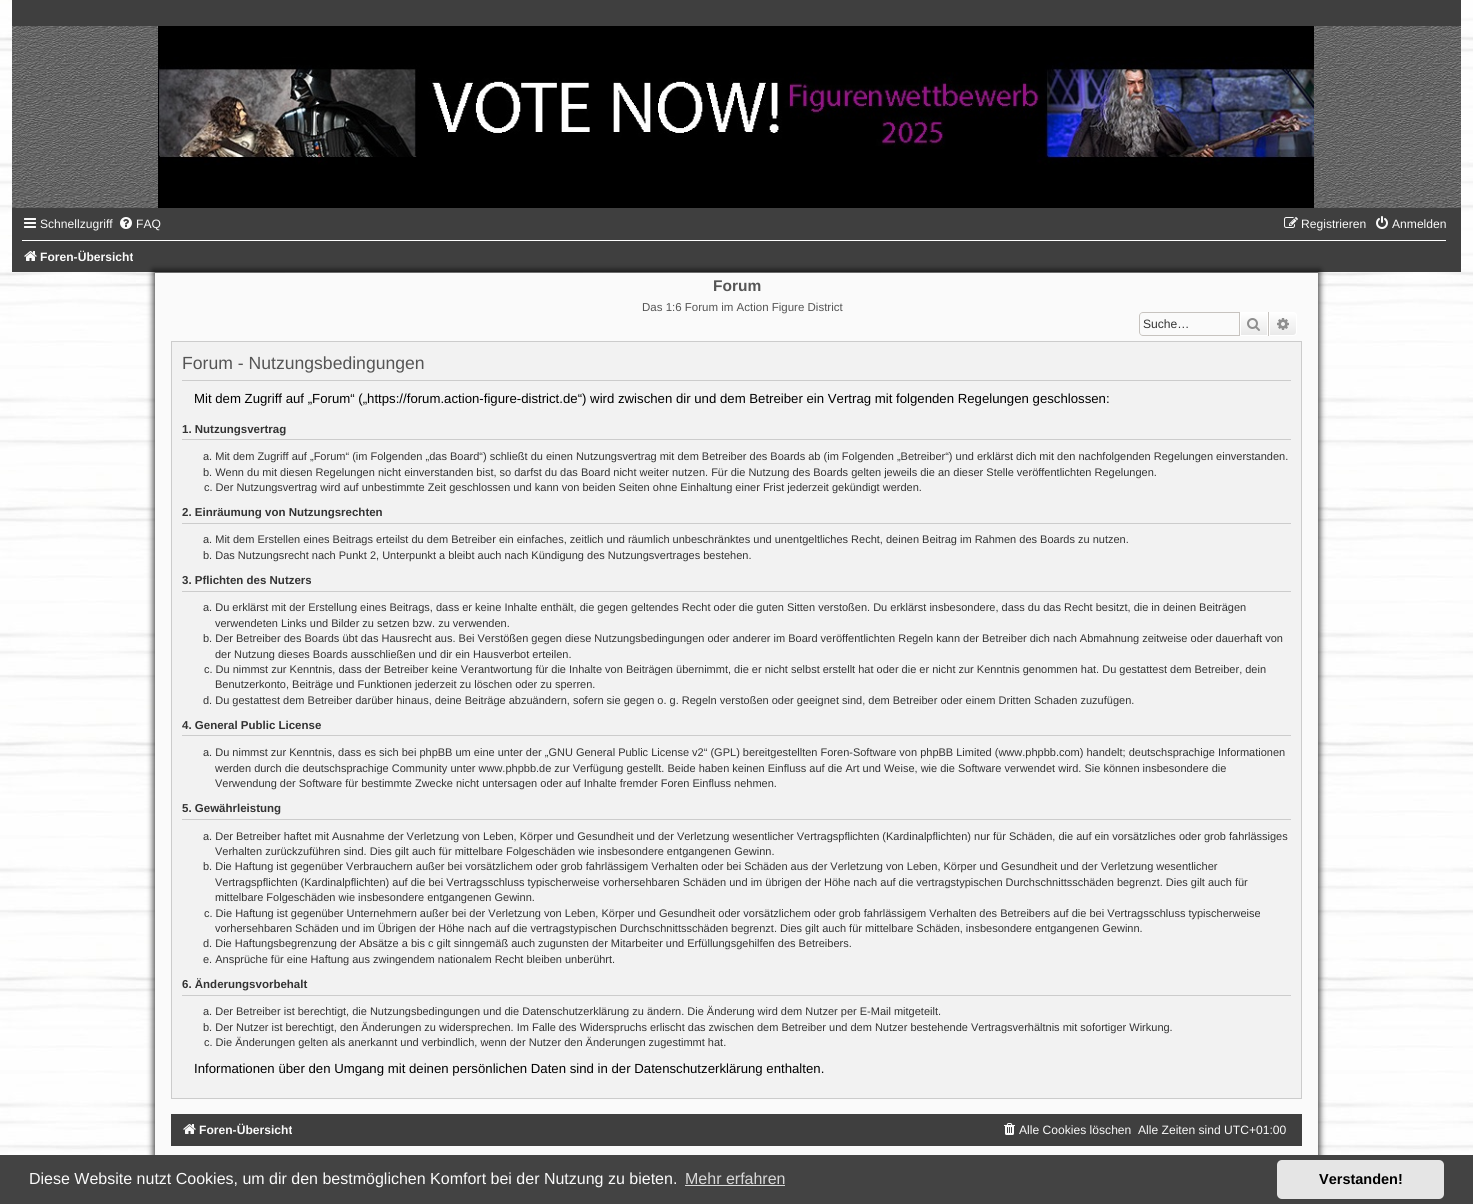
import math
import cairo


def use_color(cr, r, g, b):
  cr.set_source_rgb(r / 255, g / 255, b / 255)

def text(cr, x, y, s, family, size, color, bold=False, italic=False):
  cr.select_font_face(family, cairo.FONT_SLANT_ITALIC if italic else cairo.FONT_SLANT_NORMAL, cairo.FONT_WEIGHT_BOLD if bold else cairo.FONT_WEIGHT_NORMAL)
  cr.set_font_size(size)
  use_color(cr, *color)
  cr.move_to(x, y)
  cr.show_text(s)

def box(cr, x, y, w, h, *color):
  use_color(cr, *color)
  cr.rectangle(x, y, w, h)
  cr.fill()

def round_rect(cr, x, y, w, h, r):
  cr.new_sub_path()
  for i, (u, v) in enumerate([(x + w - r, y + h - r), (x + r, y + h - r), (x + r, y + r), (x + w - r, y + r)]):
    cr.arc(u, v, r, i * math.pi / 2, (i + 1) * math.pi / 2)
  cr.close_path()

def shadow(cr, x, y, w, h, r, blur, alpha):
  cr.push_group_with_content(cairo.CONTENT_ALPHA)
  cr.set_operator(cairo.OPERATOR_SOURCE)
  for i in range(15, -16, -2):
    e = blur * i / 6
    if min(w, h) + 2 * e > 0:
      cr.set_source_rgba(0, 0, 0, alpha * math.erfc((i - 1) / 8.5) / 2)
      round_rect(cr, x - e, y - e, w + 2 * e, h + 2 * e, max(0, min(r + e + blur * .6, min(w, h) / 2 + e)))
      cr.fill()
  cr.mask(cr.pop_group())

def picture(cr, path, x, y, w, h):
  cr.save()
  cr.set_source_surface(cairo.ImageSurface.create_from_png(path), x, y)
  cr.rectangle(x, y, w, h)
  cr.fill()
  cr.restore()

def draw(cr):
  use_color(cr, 255, 255, 255)
  cr.paint()
  picture(cr, "img_01.png", 0, 0, 1473, 1155)
  picture(cr, "img_02.png", 12, 26, 1449, 182)
  box(cr, 12, 0, 1449, 26, 63, 63, 63)
  picture(cr, "img_03.png", 158, 26, 1156, 182)
  box(cr, 12, 208, 1449, 64, 63, 63, 63)
  picture(cr, "img_04.png", 24, 218, 12, 10)
  picture(cr, "img_05.png", 120, 217, 12, 12)
  picture(cr, "img_06.png", 1284, 217, 14, 11)
  picture(cr, "img_07.png", 1376, 216, 12, 13)
  box(cr, 22, 240, 1424, 1, 255, 255, 255)
  picture(cr, "img_08.png", 24, 251, 13, 10)
  use_color(cr, 2, 2, 2)
  shadow(cr, 153, 270, 1167, 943, 0, 3, 0.7)
  box(cr, 155, 273, 1163, 882, 250, 250, 250)
  use_color(cr, 199, 195, 191)
  cr.set_fill_rule(cairo.FILL_RULE_EVEN_ODD)
  cr.new_path()
  cr.move_to(1143, 312)
  cr.line_to(1239, 312)
  cr.line_to(1239, 336)
  cr.line_to(1143, 336)
  cr.curve_to(1141, 336, 1139, 334, 1139, 332)
  cr.line_to(1139, 316)
  cr.curve_to(1139, 314, 1141, 312, 1143, 312)
  cr.close_path()
  cr.move_to(1143, 313)
  cr.line_to(1239, 313)
  cr.line_to(1239, 335)
  cr.line_to(1143, 335)
  cr.curve_to(1141, 335, 1140, 334, 1140, 332)
  cr.line_to(1140, 316)
  cr.curve_to(1140, 314, 1141, 313, 1143, 313)
  cr.close_path()
  cr.fill()
  gradient = cairo.LinearGradient(1254, 312, 1254, 336)
  gradient.add_color_stop_rgba(0, 1, 1, 1, 1)
  gradient.add_color_stop_rgba(1, 0.914, 0.914, 0.914, 1)
  cr.set_source(gradient)
  cr.rectangle(1241, 313, 26, 22)
  cr.fill()
  cr.rectangle(1240.5, 312.5, 27, 23)
  use_color(cr, 255, 255, 255)
  cr.set_line_width(1)
  cr.stroke()
  box(cr, 1268, 312, 1, 24, 199, 195, 191)
  box(cr, 1239, 312, 1, 24, 199, 195, 191)
  picture(cr, "img_09.png", 1247, 318, 13, 13)
  gradient = cairo.LinearGradient(1283, 312, 1283, 336)
  gradient.add_color_stop_rgba(0, 1, 1, 1, 1)
  gradient.add_color_stop_rgba(1, 0.914, 0.914, 0.914, 1)
  cr.set_source(gradient)
  cr.new_path()
  cr.move_to(1269.5, 312.5)
  cr.line_to(1293, 312.5)
  cr.curve_to(1295, 312.5, 1296.5, 314, 1296.5, 316)
  cr.line_to(1296.5, 332)
  cr.curve_to(1296.5, 334, 1295, 335.5, 1293, 335.5)
  cr.line_to(1269.5, 335.5)
  cr.close_path()
  cr.fill_preserve()
  use_color(cr, 255, 255, 255)
  cr.stroke()
  picture(cr, "img_10.png", 1277, 318, 12, 12)
  use_color(cr, 242, 242, 242)
  cr.rectangle(171.5, 341.5, 1130, 757)
  cr.fill_preserve()
  use_color(cr, 204, 204, 204)
  cr.stroke()
  box(cr, 182, 380, 1109, 1, 204, 204, 204)
  box(cr, 182, 439, 1109, 1, 204, 204, 204)
  box(cr, 182, 523, 1109, 1, 204, 204, 204)
  box(cr, 182, 591, 1109, 1, 204, 204, 204)
  box(cr, 182, 735, 1109, 1, 204, 204, 204)
  box(cr, 182, 819, 1109, 1, 204, 204, 204)
  box(cr, 182, 995, 1109, 1, 204, 204, 204)
  box(cr, 171, 1114, 1131, 32, 63, 63, 63)
  picture(cr, "img_08.png", 183, 1124, 13, 10)
  picture(cr, "img_11.png", 1004, 1123, 11, 12)
  box(cr, 0, 1155, 1473, 49, 67, 67, 67)
  box(cr, 685, 1185, 100, 1, 217, 217, 217)
  use_color(cr, 229, 229, 229)
  round_rect(cr, 1277, 1160, 167, 39, 5)
  cr.fill()
  text(cr, 40, 228, "Schnellzugriff", "Liberation Sans", 12.1, (250, 250, 250))
  text(cr, 136, 228, "FAQ", "Liberation Sans", 12.1, (250, 250, 250))
  text(cr, 1301, 228, "Registrieren", "Liberation Sans", 12.1, (250, 250, 250))
  text(cr, 1392, 228, "Anmelden", "Liberation Sans", 12.1, (250, 250, 250))
  text(cr, 40, 261, "Foren-Übersicht", "Liberation Sans", 12.1, (250, 250, 250), bold=True)
  text(cr, 713, 291, "Forum", "Liberation Sans", 15.5, (85, 85, 85), bold=True)
  text(cr, 642, 311, "Das 1:6 Forum im Action Figure District", "Liberation Sans", 11.5, (85, 85, 85))
  text(cr, 1143, 328, "Suche…", "Liberation Sans", 12.1, (51, 51, 51))
  text(cr, 182, 369, "Forum - Nutzungsbedingungen", "Liberation Sans", 17.6, (85, 85, 85))
  text(cr, 194, 403, "Mit dem Zugriff auf „Forum“ („https://forum.action-figure-district.de“) wird zwischen dir und dem Betreiber ein Vertrag mit folgenden Regelungen geschlossen:", "Liberation Sans", 13.2, (0, 0, 0))
  text(cr, 182, 433, "1. Nutzungsvertrag", "Liberation Sans", 11.5, (51, 51, 51), bold=True)
  text(cr, 203, 460, "a. Mit dem Zugriff auf „Forum“ (im Folgenden „das Board“) schließt du einen Nutzungsvertrag mit dem Betreiber des Boards ab (im Folgenden „Betreiber“) und erklärst dich mit den nachfolgenden Regelungen einverstanden.", "Liberation Sans", 11, (51, 51, 51))
  text(cr, 203, 476, "b. Wenn du mit diesen Regelungen nicht einverstanden bist, so darfst du das Board nicht weiter nutzen. Für die Nutzung des Boards gelten jeweils die an dieser Stelle veröffentlichten Regelungen.", "Liberation Sans", 11, (51, 51, 51))
  text(cr, 204, 491, "c. Der Nutzungsvertrag wird auf unbestimmte Zeit geschlossen und kann von beiden Seiten ohne Einhaltung einer Frist jederzeit gekündigt werden.", "Liberation Sans", 11, (51, 51, 51))
  text(cr, 182, 516, "2. Einräumung von Nutzungsrechten", "Liberation Sans", 11.5, (51, 51, 51), bold=True)
  text(cr, 203, 543, "a. Mit dem Erstellen eines Beitrags erteilst du dem Betreiber ein einfaches, zeitlich und räumlich unbeschränktes und unentgeltliches Recht, deinen Beitrag im Rahmen des Boards zu nutzen.", "Liberation Sans", 11, (51, 51, 51))
  text(cr, 203, 559, "b. Das Nutzungsrecht nach Punkt 2, Unterpunkt a bleibt auch nach Kündigung des Nutzungsvertrages bestehen.", "Liberation Sans", 11, (51, 51, 51))
  text(cr, 182, 584, "3. Pflichten des Nutzers", "Liberation Sans", 11.5, (51, 51, 51), bold=True)
  text(cr, 203, 611, "a. Du erklärst mit der Erstellung eines Beitrags, dass er keine Inhalte enthält, die gegen geltendes Recht oder die guten Sitten verstoßen. Du erklärst insbesondere, dass du das Recht besitzt, die in deinen Beiträgen", "Liberation Sans", 11, (51, 51, 51))
  text(cr, 215, 627, "verwendeten Links und Bilder zu setzen bzw. zu verwenden.", "Liberation Sans", 11, (51, 51, 51))
  text(cr, 203, 642, "b. Der Betreiber des Boards übt das Hausrecht aus. Bei Verstößen gegen diese Nutzungsbedingungen oder anderer im Board veröffentlichten Regeln kann der Betreiber dich nach Abmahnung zeitweise oder dauerhaft von", "Liberation Sans", 11, (51, 51, 51))
  text(cr, 215, 658, "der Nutzung dieses Boards ausschließen und dir ein Hausverbot erteilen.", "Liberation Sans", 11, (51, 51, 51))
  text(cr, 204, 673, "c. Du nimmst zur Kenntnis, dass der Betreiber keine Verantwortung für die Inhalte von Beiträgen übernimmt, die er nicht selbst erstellt hat oder die er nicht zur Kenntnis genommen hat. Du gestattest dem Betreiber, dein", "Liberation Sans", 11, (51, 51, 51))
  text(cr, 215, 688, "Benutzerkonto, Beiträge und Funktionen jederzeit zu löschen oder zu sperren.", "Liberation Sans", 11, (51, 51, 51))
  text(cr, 203, 704, "d. Du gestattest dem Betreiber darüber hinaus, deine Beiträge abzuändern, sofern sie gegen o. g. Regeln verstoßen oder geeignet sind, dem Betreiber oder einem Dritten Schaden zuzufügen.", "Liberation Sans", 11, (51, 51, 51))
  text(cr, 182, 729, "4. General Public License", "Liberation Sans", 11.5, (51, 51, 51), bold=True)
  text(cr, 203, 756, "a. Du nimmst zur Kenntnis, dass es sich bei phpBB um eine unter der „GNU General Public License v2“ (GPL) bereitgestellten Foren-Software von phpBB Limited (www.phpbb.com) handelt; deutschsprachige Informationen", "Liberation Sans", 11, (51, 51, 51))
  text(cr, 215, 772, "werden durch die deutschsprachige Community unter www.phpbb.de zur Verfügung gestellt. Beide haben keinen Einfluss auf die Art und Weise, wie die Software verwendet wird. Sie können insbesondere die", "Liberation Sans", 11, (51, 51, 51))
  text(cr, 215, 787, "Verwendung der Software für bestimmte Zwecke nicht untersagen oder auf Inhalte fremder Foren Einfluss nehmen.", "Liberation Sans", 11, (51, 51, 51))
  text(cr, 182, 812, "5. Gewährleistung", "Liberation Sans", 11.5, (51, 51, 51), bold=True)
  text(cr, 203, 840, "a. Der Betreiber haftet mit Ausnahme der Verletzung von Leben, Körper und Gesundheit und der Verletzung wesentlicher Vertragspflichten (Kardinalpflichten) nur für Schäden, die auf ein vorsätzliches oder grob fahrlässiges", "Liberation Sans", 11, (51, 51, 51))
  text(cr, 215, 855, "Verhalten zurückzuführen sind. Dies gilt auch für mittelbare Folgeschäden wie insbesondere entgangenen Gewinn.", "Liberation Sans", 11, (51, 51, 51))
  text(cr, 203, 870, "b. Die Haftung ist gegenüber Verbrauchern außer bei vorsätzlichem oder grob fahrlässigem Verhalten oder bei Schäden aus der Verletzung von Leben, Körper und Gesundheit und der Verletzung wesentlicher", "Liberation Sans", 11, (51, 51, 51))
  text(cr, 215, 886, "Vertragspflichten (Kardinalpflichten) auf die bei Vertragsschluss typischerweise vorhersehbaren Schäden und im übrigen der Höhe nach auf die vertragstypischen Durchschnittsschäden begrenzt. Dies gilt auch für", "Liberation Sans", 11, (51, 51, 51))
  text(cr, 215, 901, "mittelbare Folgeschäden wie insbesondere entgangenen Gewinn.", "Liberation Sans", 11, (51, 51, 51))
  text(cr, 204, 917, "c. Die Haftung ist gegenüber Unternehmern außer bei der Verletzung von Leben, Körper und Gesundheit oder vorsätzlichem oder grob fahrlässigem Verhalten des Betreibers auf die bei Vertragsschluss typischerweise", "Liberation Sans", 11, (51, 51, 51))
  text(cr, 215, 932, "vorhersehbaren Schäden und im Übrigen der Höhe nach auf die vertragstypischen Durchschnittsschäden begrenzt. Dies gilt auch für mittelbare Schäden, insbesondere entgangenen Gewinn.", "Liberation Sans", 11, (51, 51, 51))
  text(cr, 203, 947, "d. Die Haftungsbegrenzung der Absätze a bis c gilt sinngemäß auch zugunsten der Mitarbeiter und Erfüllungsgehilfen des Betreibers.", "Liberation Sans", 11, (51, 51, 51))
  text(cr, 203, 963, "e. Ansprüche für eine Haftung aus zwingendem nationalem Recht bleiben unberührt.", "Liberation Sans", 11, (51, 51, 51))
  text(cr, 182, 988, "6. Änderungsvorbehalt", "Liberation Sans", 11.5, (51, 51, 51), bold=True)
  text(cr, 203, 1015, "a. Der Betreiber ist berechtigt, die Nutzungsbedingungen und die Datenschutzerklärung zu ändern. Die Änderung wird dem Nutzer per E-Mail mitgeteilt.", "Liberation Sans", 11, (51, 51, 51))
  text(cr, 203, 1031, "b. Der Nutzer ist berechtigt, den Änderungen zu widersprechen. Im Falle des Widerspruchs erlischt das zwischen dem Betreiber und dem Nutzer bestehende Vertragsverhältnis mit sofortiger Wirkung.", "Liberation Sans", 11, (51, 51, 51))
  text(cr, 204, 1046, "c. Die Änderungen gelten als anerkannt und verbindlich, wenn der Nutzer den Änderungen zugestimmt hat.", "Liberation Sans", 11, (51, 51, 51))
  text(cr, 194, 1073, "Informationen über den Umgang mit deinen persönlichen Daten sind in der Datenschutzerklärung enthalten.", "Liberation Sans", 13.2, (0, 0, 0))
  text(cr, 199, 1134, "Foren-Übersicht", "Liberation Sans", 12.1, (250, 250, 250), bold=True)
  text(cr, 1019, 1134, "Alle Cookies löschen", "Liberation Sans", 12.1, (250, 250, 250))
  text(cr, 1138, 1134, "Alle Zeiten sind UTC+01:00", "Liberation Sans", 12.1, (250, 250, 250))
  text(cr, 29, 1184, "Diese Website nutzt Cookies, um dir den bestmöglichen Komfort bei der Nutzung zu bieten.", "Liberation Sans", 16, (250, 250, 250))
  text(cr, 685, 1184, "Mehr erfahren", "Liberation Sans", 16, (217, 217, 217))
  text(cr, 1319, 1184, "Verstanden!", "Liberation Sans", 14.5, (0, 0, 0), bold=True)


surface = cairo.ImageSurface(cairo.FORMAT_RGB24, 1473, 1204)
cr = cairo.Context(surface)
options = cairo.FontOptions()
options.set_hint_metrics(cairo.HINT_METRICS_OFF)
options.set_hint_style(cairo.HINT_STYLE_NONE)
cr.set_font_options(options)
cr.set_miter_limit(4)
draw(cr)
surface.write_to_png("out.png")
